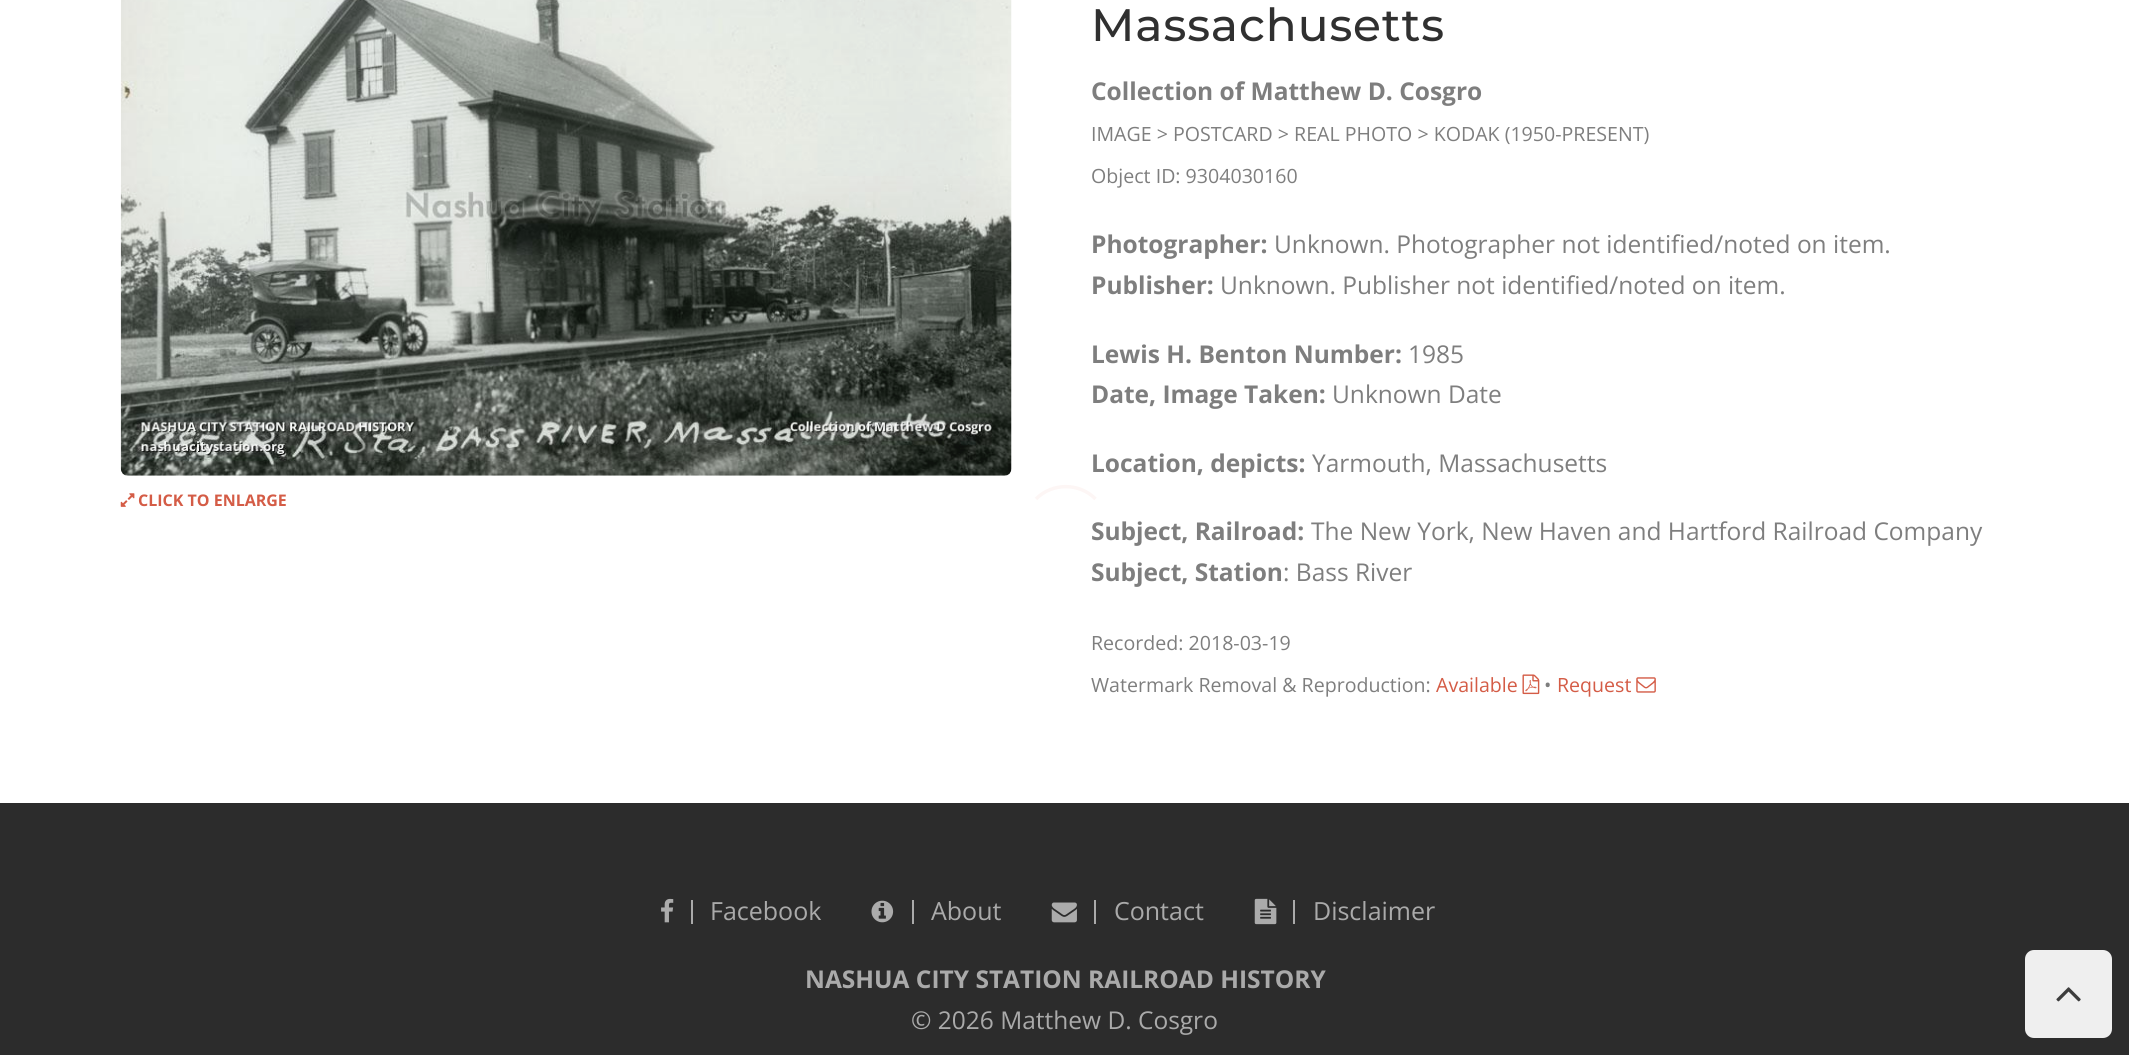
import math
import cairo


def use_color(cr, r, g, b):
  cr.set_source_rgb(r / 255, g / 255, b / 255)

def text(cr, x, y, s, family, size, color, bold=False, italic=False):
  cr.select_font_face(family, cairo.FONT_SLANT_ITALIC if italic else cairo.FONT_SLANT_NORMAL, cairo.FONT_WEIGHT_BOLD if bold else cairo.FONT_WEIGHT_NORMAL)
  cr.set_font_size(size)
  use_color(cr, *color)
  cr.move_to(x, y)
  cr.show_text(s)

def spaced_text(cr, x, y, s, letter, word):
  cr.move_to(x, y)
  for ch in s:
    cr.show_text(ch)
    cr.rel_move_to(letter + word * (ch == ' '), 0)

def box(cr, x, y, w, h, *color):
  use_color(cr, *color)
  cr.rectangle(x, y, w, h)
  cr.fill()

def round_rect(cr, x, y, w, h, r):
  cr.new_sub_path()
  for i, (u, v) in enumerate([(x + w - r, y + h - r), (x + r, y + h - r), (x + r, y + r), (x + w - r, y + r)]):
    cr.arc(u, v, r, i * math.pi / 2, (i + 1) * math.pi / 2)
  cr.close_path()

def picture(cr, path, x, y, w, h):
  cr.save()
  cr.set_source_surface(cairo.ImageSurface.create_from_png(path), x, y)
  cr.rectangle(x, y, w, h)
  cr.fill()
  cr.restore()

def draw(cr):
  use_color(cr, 255, 255, 255)
  cr.paint()
  picture(cr, "img_01.png", 120, 0, 892, 476)
  picture(cr, "img_02.png", 120, 493, 15, 14)
  picture(cr, "img_03.png", 1522, 674, 18, 21)
  picture(cr, "img_04.png", 1636, 677, 20, 16)
  box(cr, 0, 803, 2129, 252, 44, 44, 44)
  box(cr, 691, 900, 2, 24, 170, 170, 170)
  picture(cr, "img_05.png", 661, 898, 13, 25)
  box(cr, 912, 900, 2, 24, 170, 170, 170)
  picture(cr, "img_06.png", 871, 900, 23, 23)
  box(cr, 1094, 900, 2, 24, 170, 170, 170)
  picture(cr, "img_07.png", 1051, 902, 26, 21)
  box(cr, 1293, 900, 2, 24, 170, 170, 170)
  picture(cr, "img_08.png", 1254, 898, 23, 27)
  cr.new_path()
  cr.move_to(1036, 499)
  cr.curve_to(1052, 482.5, 1079.5, 482.5, 1095.5, 499)
  use_color(cr, 253, 246, 245)
  cr.set_line_width(3.5)
  cr.stroke()
  cr.new_path()
  cr.move_to(1095.5, 499)
  cr.curve_to(1105.5, 508.5, 1109.5, 523, 1107, 536.5)
  cr.curve_to(1105.5, 545, 1101.5, 552.5, 1095.5, 558)
  cr.curve_to(1069, 584.5, 1024, 565.5, 1024, 528.5)
  cr.curve_to(1024, 517.5, 1028, 506.5, 1036, 499)
  cr.set_source_rgba(0.961, 0.961, 0.961, 0.03)
  cr.stroke()
  use_color(cr, 239, 239, 239)
  round_rect(cr, 2025, 950, 87, 88, 9)
  cr.fill()
  picture(cr, "img_09.png", 2056, 987, 25, 15)
  text(cr, 138, 506, "CLICK TO ENLARGE", "Open Sans", 16, (212, 92, 70), bold=True)
  cr.select_font_face("Montserrat Medium")
  cr.set_font_size(45.5)
  use_color(cr, 48, 48, 48)
  spaced_text(cr, 1091, 41, "Massachusetts", 0.9, 0)
  text(cr, 1091, 100, "Collection of Matthew D. Cosgro", "Open Sans", 24.5, (126, 126, 126), bold=True)
  text(cr, 1091, 141, "IMAGE > POSTCARD > REAL PHOTO > KODAK (1950-PRESENT)", "Open Sans", 19.6, (126, 126, 126))
  text(cr, 1091, 183, "Object ID: 9304030160", "Open Sans", 19.6, (126, 126, 126))
  text(cr, 1091, 253, "Photographer:", "Open Sans", 24.5, (126, 126, 126), bold=True)
  text(cr, 1274, 253, "Unknown. Photographer not identified/noted on item.", "Open Sans", 24.5, (126, 126, 126))
  text(cr, 1091, 294, "Publisher:", "Open Sans", 24.5, (126, 126, 126), bold=True)
  text(cr, 1220, 294, "Unknown. Publisher not identified/noted on item.", "Open Sans", 24.5, (126, 126, 126))
  text(cr, 1091, 363, "Lewis H. Benton Number:", "Open Sans", 24.5, (126, 126, 126), bold=True)
  text(cr, 1408, 363, "1985", "Open Sans", 24.5, (126, 126, 126))
  text(cr, 1091, 403, "Date, Image Taken:", "Open Sans", 24.5, (126, 126, 126), bold=True)
  text(cr, 1332, 403, "Unknown Date", "Open Sans", 24.5, (126, 126, 126))
  text(cr, 1091, 472, "Location, depicts:", "Open Sans", 24.5, (126, 126, 126), bold=True)
  text(cr, 1312, 472, "Yarmouth, Massachusetts", "Open Sans", 24.5, (126, 126, 126))
  text(cr, 1091, 540, "Subject, Railroad:", "Open Sans", 24.5, (126, 126, 126), bold=True)
  text(cr, 1311, 540, "The New York, New Haven and Hartford Railroad Company", "Open Sans", 24.5, (126, 126, 126))
  text(cr, 1091, 581, "Subject, Station", "Open Sans", 24.5, (126, 126, 126), bold=True)
  text(cr, 1283, 581, ": Bass River", "Open Sans", 24.5, (126, 126, 126))
  text(cr, 1091, 650, "Recorded: 2018-03-19", "Open Sans", 19.6, (126, 126, 126))
  text(cr, 1091, 692, "Watermark Removal & Reproduction:", "Open Sans", 19.6, (126, 126, 126))
  text(cr, 1436, 692, "Available", "Open Sans", 19.6, (212, 92, 70))
  text(cr, 1544, 692, "•", "Open Sans", 19.6, (126, 126, 126))
  text(cr, 1557, 692, "Request", "Open Sans", 19.6, (212, 92, 70))
  text(cr, 710, 920, "Facebook", "Open Sans", 25, (170, 170, 170))
  text(cr, 931, 920, "About", "Open Sans", 25, (170, 170, 170))
  text(cr, 1114, 920, "Contact", "Open Sans", 25, (170, 170, 170))
  text(cr, 1313, 920, "Disclaimer", "Open Sans", 25, (170, 170, 170))
  text(cr, 805, 988, "NASHUA CITY STATION RAILROAD HISTORY", "Open Sans", 24.5, (170, 170, 170), bold=True)
  text(cr, 911, 1029, "© 2026 Matthew D. Cosgro", "Open Sans", 24.5, (170, 170, 170))


surface = cairo.ImageSurface(cairo.FORMAT_RGB24, 2129, 1055)
cr = cairo.Context(surface)
options = cairo.FontOptions()
options.set_hint_metrics(cairo.HINT_METRICS_OFF)
options.set_hint_style(cairo.HINT_STYLE_NONE)
cr.set_font_options(options)
cr.set_miter_limit(4)
draw(cr)
surface.write_to_png("out.png")
